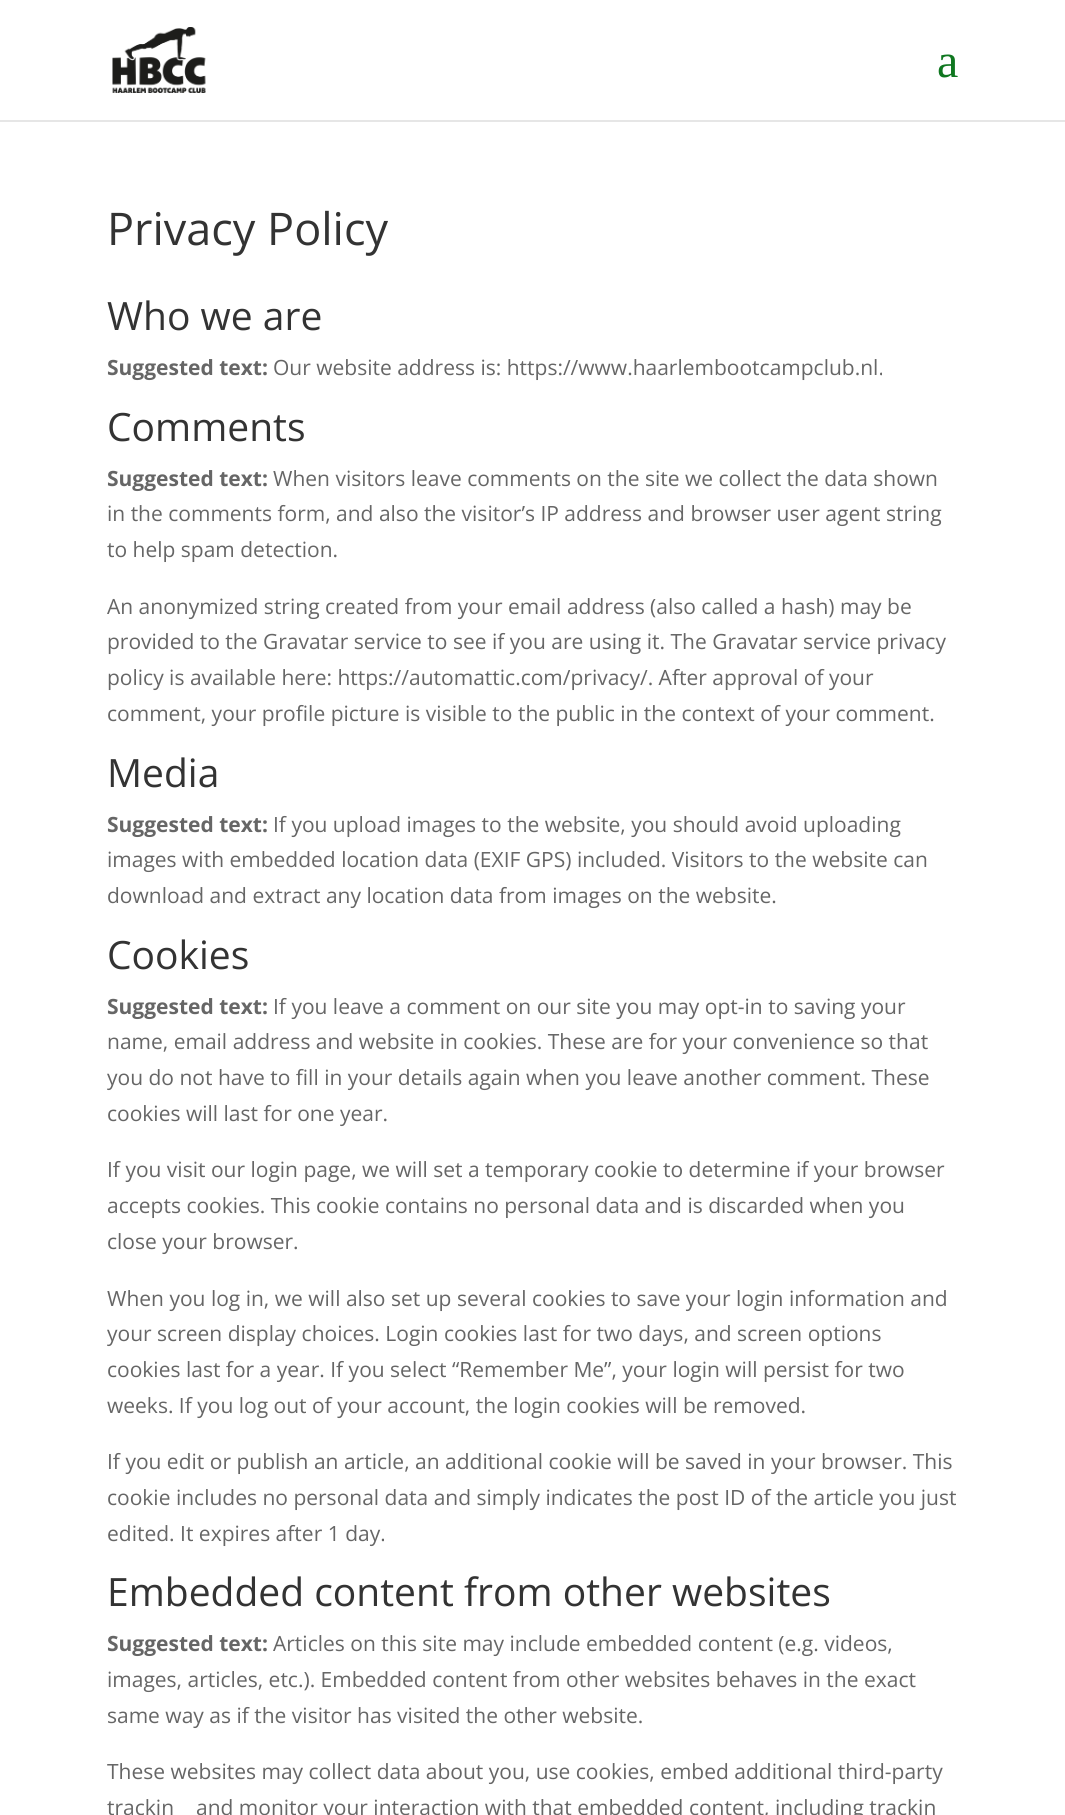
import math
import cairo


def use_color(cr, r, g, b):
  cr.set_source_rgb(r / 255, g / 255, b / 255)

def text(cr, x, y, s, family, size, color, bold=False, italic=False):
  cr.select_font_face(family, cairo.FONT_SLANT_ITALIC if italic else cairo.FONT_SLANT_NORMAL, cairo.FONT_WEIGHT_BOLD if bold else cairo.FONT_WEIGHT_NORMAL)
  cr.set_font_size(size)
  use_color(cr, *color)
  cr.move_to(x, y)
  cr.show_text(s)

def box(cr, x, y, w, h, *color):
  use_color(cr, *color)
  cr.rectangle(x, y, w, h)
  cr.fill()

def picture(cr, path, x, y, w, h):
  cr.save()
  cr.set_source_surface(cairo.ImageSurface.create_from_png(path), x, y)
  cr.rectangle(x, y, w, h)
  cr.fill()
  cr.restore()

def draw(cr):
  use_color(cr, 255, 255, 255)
  cr.paint()
  box(cr, 0, 120, 1065, 2, 230, 230, 230)
  picture(cr, "img_01.png", 112, 27, 94, 66)
  text(cr, 937, 77, "a", "Liberation Serif", 48, (15, 119, 32))
  text(cr, 107, 245, "Privacy Policy", "Open Sans", 45, (51, 51, 51))
  text(cr, 107, 330, "Who we are", "Open Sans", 39, (51, 51, 51))
  text(cr, 107, 375, "Suggested text:", "Open Sans", 21, (102, 102, 102), bold=True)
  text(cr, 273, 375, "Our website address is: https://www.haarlembootcampclub.nl.", "Open Sans", 21, (102, 102, 102))
  text(cr, 107, 441, "Comments", "Open Sans", 39, (51, 51, 51))
  text(cr, 107, 486, "Suggested text:", "Open Sans", 21, (102, 102, 102), bold=True)
  text(cr, 273, 486, "When visitors leave comments on the site we collect the data shown", "Open Sans", 21, (102, 102, 102))
  text(cr, 107, 521, "in the comments form, and also the visitor’s IP address and browser user agent string", "Open Sans", 21, (102, 102, 102))
  text(cr, 107, 557, "to help spam detection.", "Open Sans", 21, (102, 102, 102))
  text(cr, 107, 614, "An anonymized string created from your email address (also called a hash) may be", "Open Sans", 21, (102, 102, 102))
  text(cr, 107, 649, "provided to the Gravatar service to see if you are using it. The Gravatar service privacy", "Open Sans", 21, (102, 102, 102))
  text(cr, 107, 685, "policy is available here: https://automattic.com/privacy/. After approval of your", "Open Sans", 21, (102, 102, 102))
  text(cr, 107, 721, "comment, your profile picture is visible to the public in the context of your comment.", "Open Sans", 21, (102, 102, 102))
  text(cr, 107, 787, "Media", "Open Sans", 39, (51, 51, 51))
  text(cr, 107, 832, "Suggested text:", "Open Sans", 21, (102, 102, 102), bold=True)
  text(cr, 273, 832, "If you upload images to the website, you should avoid uploading", "Open Sans", 21, (102, 102, 102))
  text(cr, 107, 867, "images with embedded location data (EXIF GPS) included. Visitors to the website can", "Open Sans", 21, (102, 102, 102))
  text(cr, 107, 903, "download and extract any location data from images on the website.", "Open Sans", 21, (102, 102, 102))
  text(cr, 107, 969, "Cookies", "Open Sans", 39, (51, 51, 51))
  text(cr, 107, 1014, "Suggested text:", "Open Sans", 21, (102, 102, 102), bold=True)
  text(cr, 273, 1014, "If you leave a comment on our site you may opt-in to saving your", "Open Sans", 21, (102, 102, 102))
  text(cr, 107, 1049, "name, email address and website in cookies. These are for your convenience so that", "Open Sans", 21, (102, 102, 102))
  text(cr, 107, 1085, "you do not have to fill in your details again when you leave another comment. These", "Open Sans", 21, (102, 102, 102))
  text(cr, 107, 1121, "cookies will last for one year.", "Open Sans", 21, (102, 102, 102))
  text(cr, 107, 1177, "If you visit our login page, we will set a temporary cookie to determine if your browser", "Open Sans", 21, (102, 102, 102))
  text(cr, 107, 1213, "accepts cookies. This cookie contains no personal data and is discarded when you", "Open Sans", 21, (102, 102, 102))
  text(cr, 107, 1249, "close your browser.", "Open Sans", 21, (102, 102, 102))
  text(cr, 107, 1306, "When you log in, we will also set up several cookies to save your login information and", "Open Sans", 21, (102, 102, 102))
  text(cr, 107, 1341, "your screen display choices. Login cookies last for two days, and screen options", "Open Sans", 21, (102, 102, 102))
  text(cr, 107, 1377, "cookies last for a year. If you select “Remember Me”, your login will persist for two", "Open Sans", 21, (102, 102, 102))
  text(cr, 107, 1413, "weeks. If you log out of your account, the login cookies will be removed.", "Open Sans", 21, (102, 102, 102))
  text(cr, 107, 1469, "If you edit or publish an article, an additional cookie will be saved in your browser. This", "Open Sans", 21, (102, 102, 102))
  text(cr, 107, 1505, "cookie includes no personal data and simply indicates the post ID of the article you just", "Open Sans", 21, (102, 102, 102))
  text(cr, 107, 1541, "edited. It expires after 1 day.", "Open Sans", 21, (102, 102, 102))
  text(cr, 107, 1606, "Embedded content from other websites", "Open Sans", 39, (51, 51, 51))
  text(cr, 107, 1651, "Suggested text:", "Open Sans", 21, (102, 102, 102), bold=True)
  text(cr, 273, 1651, "Articles on this site may include embedded content (e.g. videos,", "Open Sans", 21, (102, 102, 102))
  text(cr, 107, 1687, "images, articles, etc.). Embedded content from other websites behaves in the exact", "Open Sans", 21, (102, 102, 102))
  text(cr, 107, 1723, "same way as if the visitor has visited the other website.", "Open Sans", 21, (102, 102, 102))
  text(cr, 107, 1779, "These websites may collect data about you, use cookies, embed additional third-party", "Open Sans", 21, (102, 102, 102))
  text(cr, 107, 1815, "trackin", "Open Sans", 21, (102, 102, 102))
  text(cr, 196, 1815, "and monitor your interaction with that embedded content, including trackin", "Open Sans", 21, (102, 102, 102))


surface = cairo.ImageSurface(cairo.FORMAT_RGB24, 1065, 1815)
cr = cairo.Context(surface)
options = cairo.FontOptions()
options.set_hint_metrics(cairo.HINT_METRICS_OFF)
options.set_hint_style(cairo.HINT_STYLE_NONE)
cr.set_font_options(options)
cr.set_miter_limit(4)
draw(cr)
surface.write_to_png("out.png")
